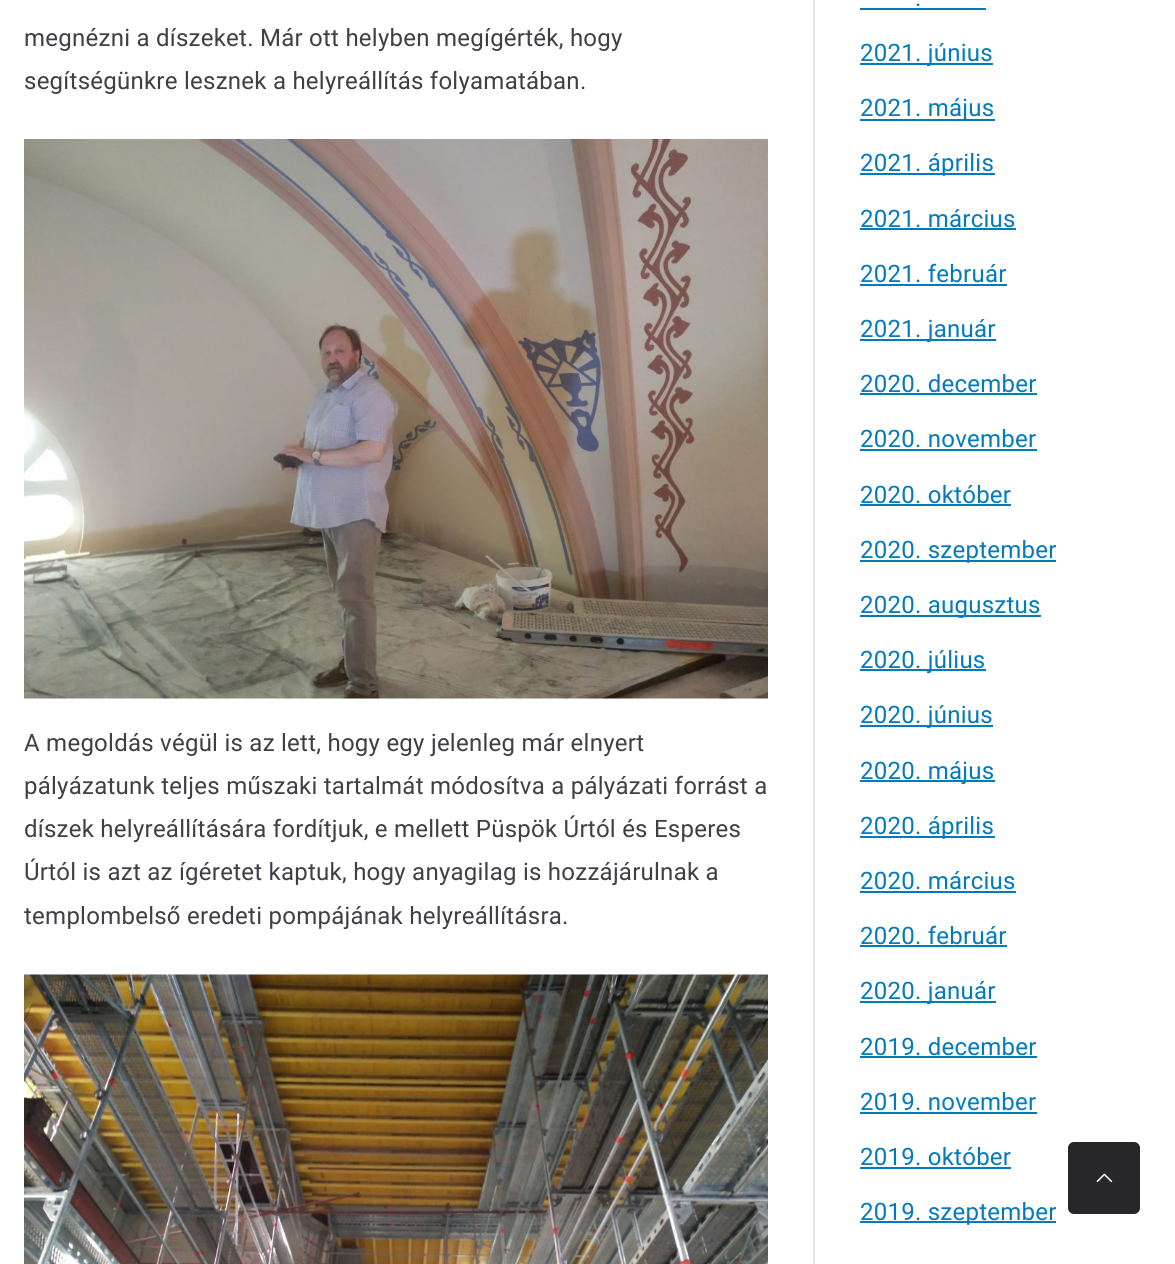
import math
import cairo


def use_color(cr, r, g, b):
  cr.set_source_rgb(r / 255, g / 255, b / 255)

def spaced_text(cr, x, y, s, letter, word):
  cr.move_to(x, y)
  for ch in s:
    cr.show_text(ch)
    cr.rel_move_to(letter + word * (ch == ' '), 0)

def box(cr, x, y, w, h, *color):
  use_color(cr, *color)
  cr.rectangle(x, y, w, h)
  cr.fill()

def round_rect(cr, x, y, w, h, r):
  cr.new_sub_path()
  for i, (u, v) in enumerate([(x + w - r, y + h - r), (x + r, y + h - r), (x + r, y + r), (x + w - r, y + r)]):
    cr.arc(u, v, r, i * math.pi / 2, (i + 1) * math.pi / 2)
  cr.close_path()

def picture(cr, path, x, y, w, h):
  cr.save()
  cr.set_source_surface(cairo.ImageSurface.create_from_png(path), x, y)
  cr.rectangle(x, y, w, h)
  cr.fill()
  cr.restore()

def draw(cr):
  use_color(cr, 255, 255, 255)
  cr.paint()
  picture(cr, "img_01.png", 24, 139, 744, 560)
  picture(cr, "img_02.png", 24, 974, 744, 290)
  box(cr, 813, 0, 2, 1264, 228, 228, 231)
  box(cr, 860, 8, 126, 2, 2, 122, 187)
  box(cr, 860, 63, 133, 2, 2, 122, 187)
  box(cr, 860, 119, 135, 2, 2, 122, 187)
  box(cr, 860, 173, 135, 2, 2, 122, 187)
  box(cr, 860, 228, 156, 2, 2, 122, 187)
  box(cr, 860, 284, 147, 2, 2, 122, 187)
  box(cr, 860, 339, 136, 2, 2, 122, 187)
  box(cr, 860, 393, 177, 2, 2, 122, 187)
  box(cr, 860, 449, 177, 2, 2, 122, 187)
  box(cr, 860, 504, 151, 2, 2, 122, 187)
  box(cr, 860, 560, 196, 2, 2, 122, 187)
  box(cr, 860, 615, 181, 2, 2, 122, 187)
  box(cr, 860, 669, 126, 2, 2, 122, 187)
  box(cr, 860, 725, 133, 2, 2, 122, 187)
  box(cr, 860, 780, 135, 2, 2, 122, 187)
  box(cr, 860, 836, 135, 2, 2, 122, 187)
  box(cr, 860, 891, 156, 2, 2, 122, 187)
  box(cr, 860, 945, 147, 2, 2, 122, 187)
  box(cr, 860, 1001, 136, 2, 2, 122, 187)
  box(cr, 860, 1056, 177, 2, 2, 122, 187)
  box(cr, 860, 1112, 177, 2, 2, 122, 187)
  box(cr, 860, 1167, 151, 2, 2, 122, 187)
  box(cr, 860, 1221, 196, 2, 2, 122, 187)
  use_color(cr, 39, 39, 42)
  round_rect(cr, 1068, 1142, 72, 72, 6)
  cr.fill()
  picture(cr, "img_03.png", 1096, 1173, 17, 10)
  cr.select_font_face("Roboto")
  cr.set_font_size(24)
  use_color(cr, 63, 63, 70)
  spaced_text(cr, 24, 46, "megnézni a díszeket. Már ott helyben megígérték, hogy", 0.25, 0)
  spaced_text(cr, 24, 89, "segítségünkre lesznek a helyreállítás folyamatában.", 0.25, 0)
  spaced_text(cr, 24, 751, "A megoldás végül is az lett, hogy egy jelenleg már elnyert", 0.25, 0)
  spaced_text(cr, 24, 794, "pályázatunk teljes műszaki tartalmát módosítva a pályázati forrást a", 0.25, 0)
  spaced_text(cr, 24, 837, "díszek helyreállítására fordítjuk, e mellett Püspök Úrtól és Esperes", 0.25, 0)
  spaced_text(cr, 24, 880, "Úrtól is azt az ígéretet kaptuk, hogy anyagilag is hozzájárulnak a", 0.25, 0)
  spaced_text(cr, 24, 924, "templombelső eredeti pompájának helyreállításra.", 0.25, 0)
  use_color(cr, 2, 122, 187)
  spaced_text(cr, 915, 6, ".", 0.25, 0)
  spaced_text(cr, 860, 61, "2021. június", 0.25, 0)
  spaced_text(cr, 860, 116, "2021. május", 0.25, 0)
  spaced_text(cr, 860, 171, "2021. április", 0.25, 0)
  spaced_text(cr, 860, 227, "2021. március", 0.25, 0)
  spaced_text(cr, 860, 282, "2021. február", 0.25, 0)
  spaced_text(cr, 860, 337, "2021. január", 0.25, 0)
  spaced_text(cr, 860, 392, "2020. december", 0.25, 0)
  spaced_text(cr, 860, 447, "2020. november", 0.25, 0)
  spaced_text(cr, 860, 503, "2020. október", 0.25, 0)
  spaced_text(cr, 860, 558, "2020. szeptember", 0.25, 0)
  spaced_text(cr, 860, 613, "2020. augusztus", 0.25, 0)
  spaced_text(cr, 860, 668, "2020. július", 0.25, 0)
  spaced_text(cr, 860, 723, "2020. június", 0.25, 0)
  spaced_text(cr, 860, 779, "2020. május", 0.25, 0)
  spaced_text(cr, 860, 834, "2020. április", 0.25, 0)
  spaced_text(cr, 860, 889, "2020. március", 0.25, 0)
  spaced_text(cr, 860, 944, "2020. február", 0.25, 0)
  spaced_text(cr, 860, 999, "2020. január", 0.25, 0)
  spaced_text(cr, 860, 1055, "2019. december", 0.25, 0)
  spaced_text(cr, 860, 1110, "2019. november", 0.25, 0)
  spaced_text(cr, 860, 1165, "2019. október", 0.25, 0)
  spaced_text(cr, 860, 1220, "2019. szeptember", 0.25, 0)


surface = cairo.ImageSurface(cairo.FORMAT_RGB24, 1175, 1264)
cr = cairo.Context(surface)
options = cairo.FontOptions()
options.set_hint_metrics(cairo.HINT_METRICS_OFF)
options.set_hint_style(cairo.HINT_STYLE_NONE)
cr.set_font_options(options)
cr.set_miter_limit(4)
draw(cr)
surface.write_to_png("out.png")
